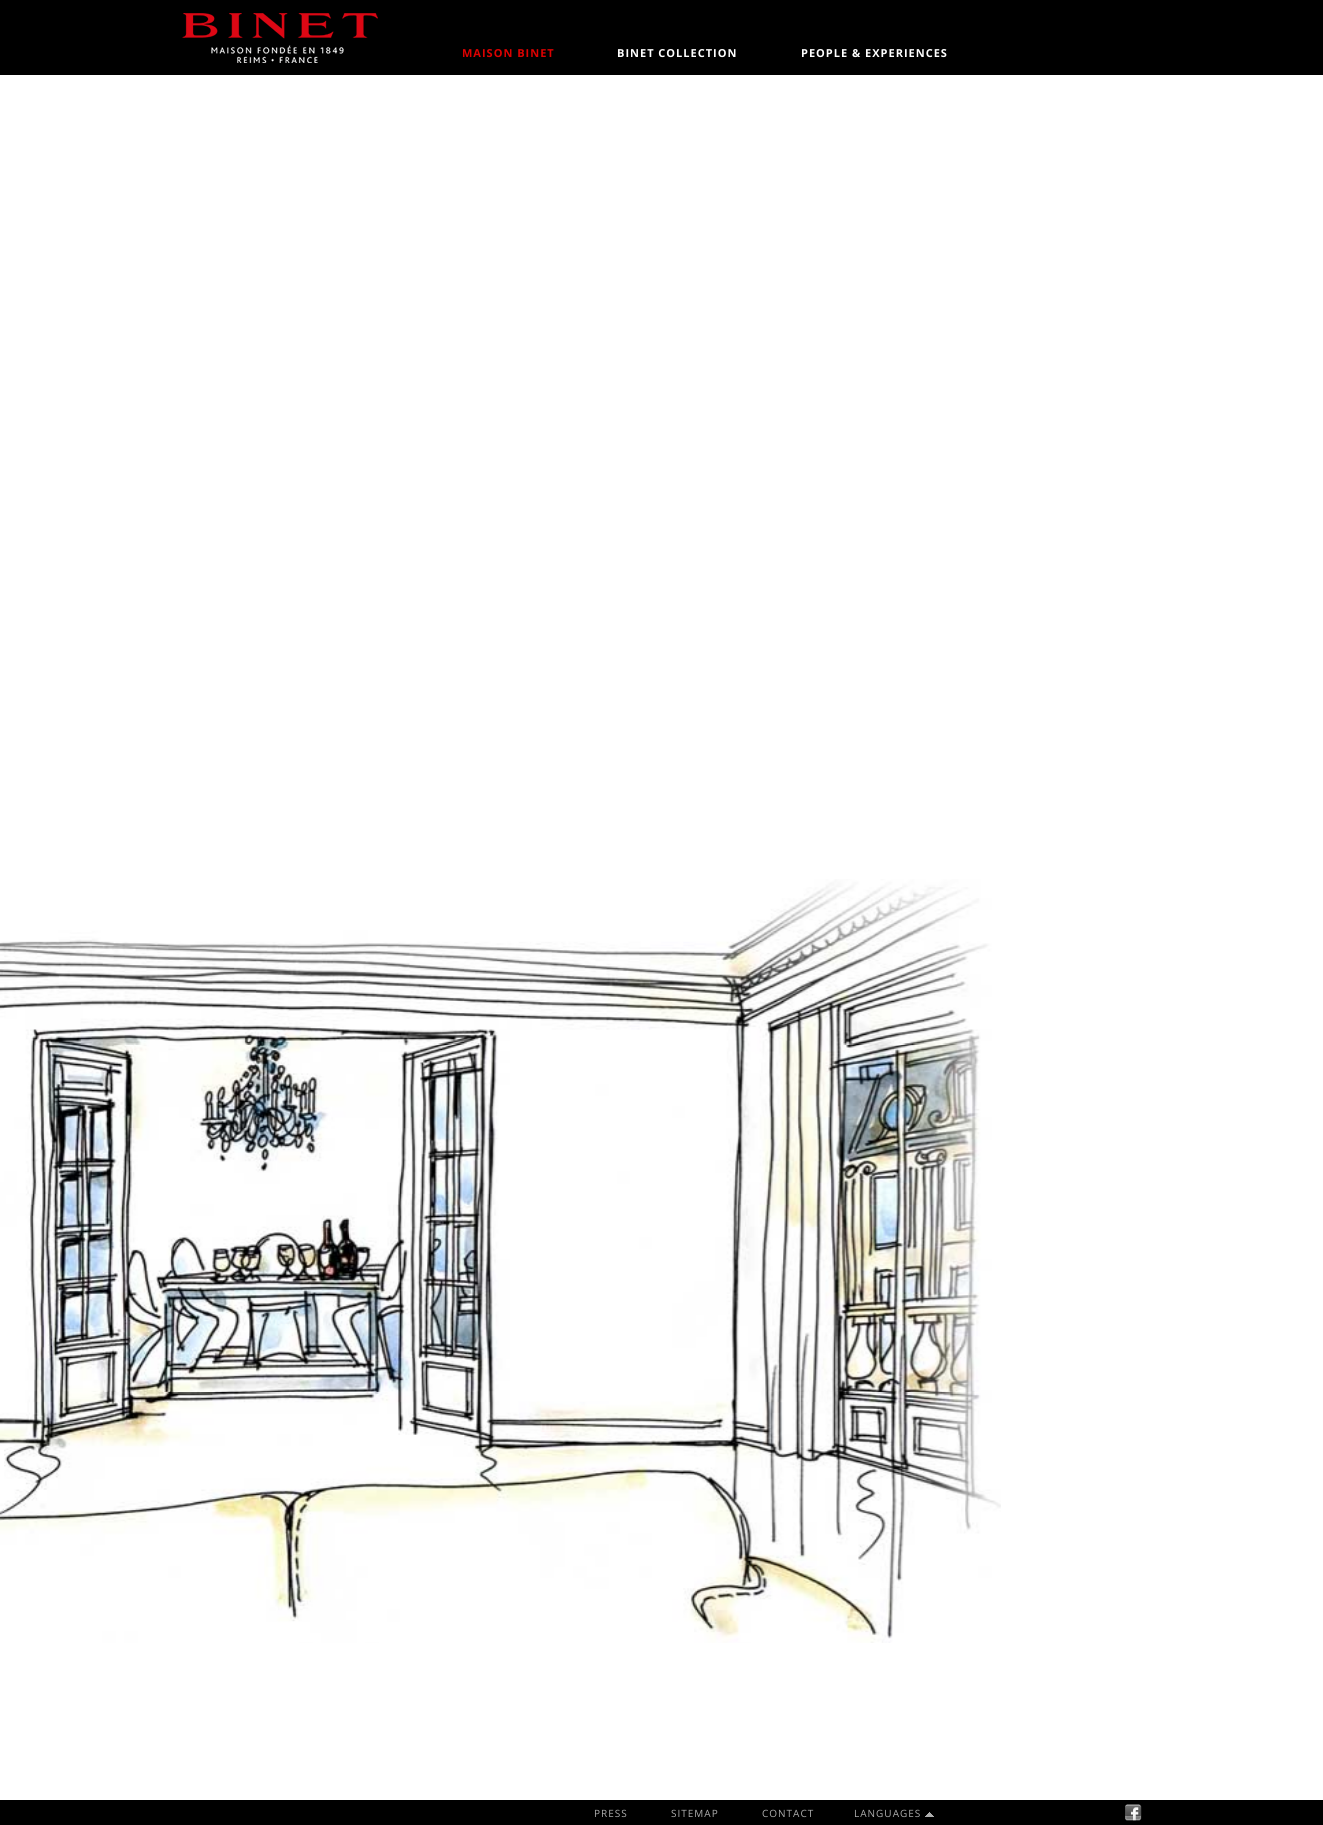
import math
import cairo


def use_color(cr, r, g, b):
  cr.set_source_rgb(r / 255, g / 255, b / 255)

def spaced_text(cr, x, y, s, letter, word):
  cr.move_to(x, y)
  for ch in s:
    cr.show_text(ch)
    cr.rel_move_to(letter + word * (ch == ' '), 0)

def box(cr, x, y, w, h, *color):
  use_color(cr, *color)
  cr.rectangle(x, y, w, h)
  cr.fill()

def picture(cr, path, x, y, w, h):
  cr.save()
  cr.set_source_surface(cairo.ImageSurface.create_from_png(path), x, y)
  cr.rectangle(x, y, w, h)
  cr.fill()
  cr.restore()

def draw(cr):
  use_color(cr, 255, 255, 255)
  cr.paint()
  box(cr, 0, 0, 1323, 75, 0, 0, 0)
  picture(cr, "img_01.png", 182, 13, 196, 50)
  picture(cr, "img_02.png", 0, 879, 1001, 764)
  box(cr, 0, 1800, 1323, 25, 0, 0, 0)
  picture(cr, "img_03.png", 925, 1812, 9, 5)
  picture(cr, "img_04.png", 1125, 1804, 17, 17)
  cr.select_font_face("Open Sans", cairo.FONT_SLANT_NORMAL, cairo.FONT_WEIGHT_BOLD)
  cr.set_font_size(11)
  use_color(cr, 220, 0, 0)
  spaced_text(cr, 462, 57, "MAISON BINET", 1, 0)
  use_color(cr, 255, 255, 255)
  spaced_text(cr, 617, 57, "BINET COLLECTION", 1, 0)
  spaced_text(cr, 801, 57, "PEOPLE & EXPERIENCES", 1, 0)
  cr.select_font_face("Open Sans")
  cr.set_font_size(10)
  use_color(cr, 174, 174, 174)
  spaced_text(cr, 594, 1817, "PRESS", 1, 0)
  spaced_text(cr, 671, 1817, "SITEMAP", 1, 0)
  spaced_text(cr, 762, 1817, "CONTACT", 1, 0)
  spaced_text(cr, 854, 1817, "LANGUAGES", 1, 0)


surface = cairo.ImageSurface(cairo.FORMAT_RGB24, 1323, 1825)
cr = cairo.Context(surface)
options = cairo.FontOptions()
options.set_hint_metrics(cairo.HINT_METRICS_OFF)
options.set_hint_style(cairo.HINT_STYLE_NONE)
cr.set_font_options(options)
cr.set_miter_limit(4)
draw(cr)
surface.write_to_png("out.png")
